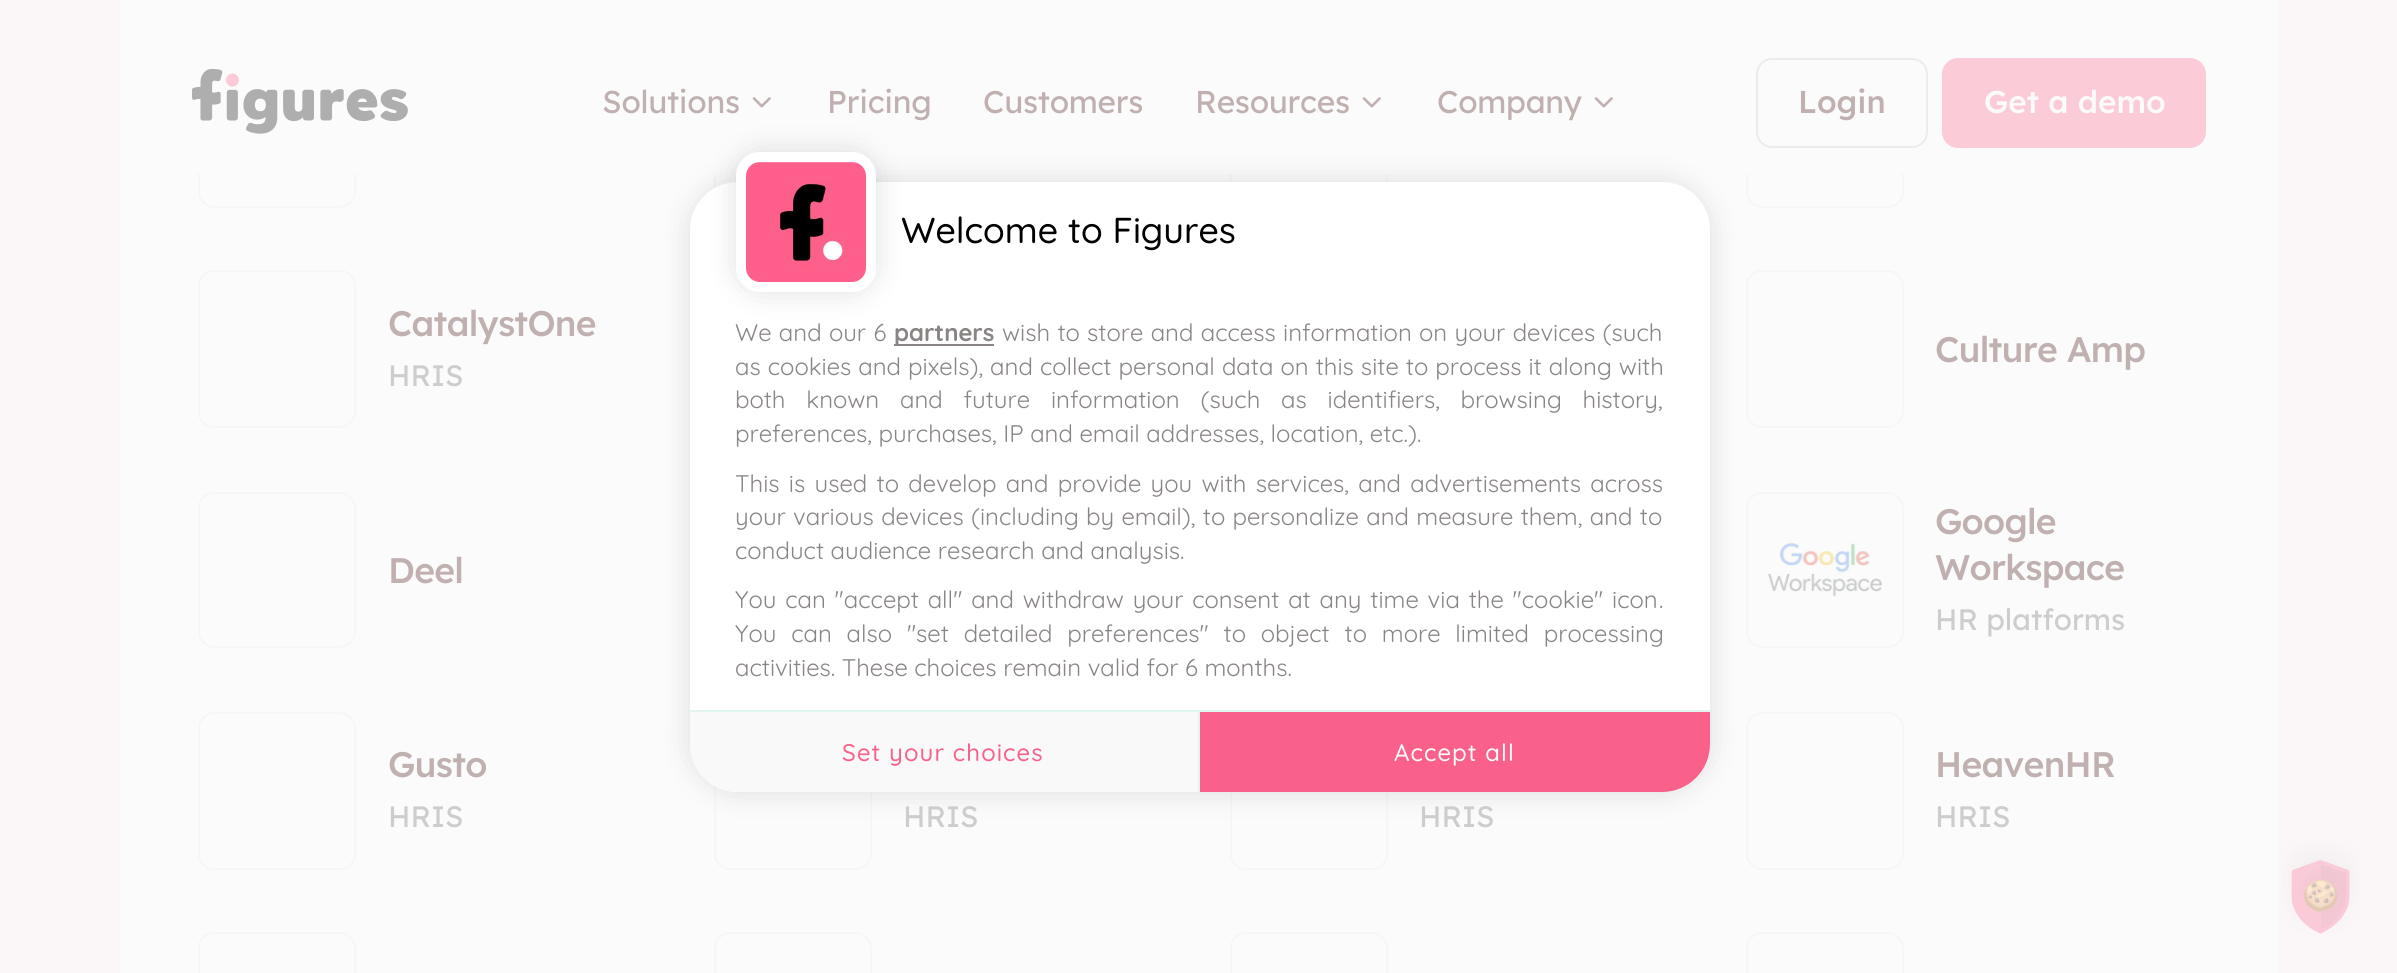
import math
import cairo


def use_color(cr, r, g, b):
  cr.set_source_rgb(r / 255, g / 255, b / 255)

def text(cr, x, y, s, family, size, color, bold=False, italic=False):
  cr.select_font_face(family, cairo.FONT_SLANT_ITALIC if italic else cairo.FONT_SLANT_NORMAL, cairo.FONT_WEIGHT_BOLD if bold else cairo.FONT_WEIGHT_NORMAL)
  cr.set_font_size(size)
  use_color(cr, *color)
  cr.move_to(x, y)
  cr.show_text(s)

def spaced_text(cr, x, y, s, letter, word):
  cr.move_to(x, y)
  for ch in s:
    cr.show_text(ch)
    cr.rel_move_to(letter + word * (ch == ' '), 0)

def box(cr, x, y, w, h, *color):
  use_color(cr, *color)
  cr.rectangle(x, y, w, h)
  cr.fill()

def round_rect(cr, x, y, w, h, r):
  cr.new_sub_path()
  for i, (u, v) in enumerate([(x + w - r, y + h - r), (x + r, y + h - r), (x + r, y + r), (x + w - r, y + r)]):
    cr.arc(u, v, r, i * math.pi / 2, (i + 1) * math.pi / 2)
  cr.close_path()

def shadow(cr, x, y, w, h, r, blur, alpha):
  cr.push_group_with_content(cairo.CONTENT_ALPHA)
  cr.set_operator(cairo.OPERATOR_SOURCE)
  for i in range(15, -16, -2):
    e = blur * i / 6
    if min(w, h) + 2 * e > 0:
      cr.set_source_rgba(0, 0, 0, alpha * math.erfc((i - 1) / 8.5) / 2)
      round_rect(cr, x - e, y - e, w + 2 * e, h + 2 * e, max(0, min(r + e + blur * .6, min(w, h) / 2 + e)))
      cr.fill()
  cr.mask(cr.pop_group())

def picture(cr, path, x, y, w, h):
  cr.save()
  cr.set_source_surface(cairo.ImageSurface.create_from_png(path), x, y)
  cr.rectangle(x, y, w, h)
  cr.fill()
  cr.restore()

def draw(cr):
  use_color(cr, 251, 247, 248)
  cr.paint()
  box(cr, 120, 0, 2158, 973, 251, 251, 251)
  round_rect(cr, 199, 51, 156, 156, 15)
  use_color(cr, 246, 246, 246)
  cr.stroke()
  cr.rectangle(715, 51, 156, 156)
  cr.stroke()
  cr.rectangle(1231, 51, 156, 156)
  cr.stroke()
  round_rect(cr, 1747, 51, 156, 156, 15)
  cr.stroke()
  use_color(cr, 251, 251, 251)
  round_rect(cr, 144, 32, 2110, 142, 32)
  cr.fill()
  picture(cr, "img_01.png", 192, 69, 216, 65)
  picture(cr, "img_02.png", 752, 97, 19, 11)
  picture(cr, "img_02.png", 1362, 97, 19, 11)
  picture(cr, "img_02.png", 1594, 97, 19, 11)
  round_rect(cr, 1757, 59, 170, 88, 15)
  use_color(cr, 236, 236, 236)
  cr.stroke()
  use_color(cr, 251, 203, 216)
  round_rect(cr, 1943, 59, 262, 88, 15)
  cr.fill_preserve()
  cr.stroke()
  round_rect(cr, 199, 271, 156, 156, 15)
  use_color(cr, 246, 246, 246)
  cr.stroke()
  round_rect(cr, 1747, 271, 156, 156, 15)
  cr.stroke()
  round_rect(cr, 199, 493, 156, 154, 15)
  cr.stroke()
  round_rect(cr, 1747, 493, 156, 154, 15)
  cr.stroke()
  picture(cr, "img_03.png", 1768, 542, 114, 55)
  round_rect(cr, 199, 713, 156, 156, 15)
  cr.stroke()
  round_rect(cr, 715, 713, 156, 156, 15)
  cr.stroke()
  round_rect(cr, 1231, 713, 156, 156, 15)
  cr.stroke()
  round_rect(cr, 1747, 713, 156, 156, 15)
  cr.stroke()
  round_rect(cr, 199, 933, 156, 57, 15)
  cr.stroke()
  round_rect(cr, 715, 933, 156, 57, 15)
  cr.stroke()
  round_rect(cr, 1231, 933, 156, 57, 15)
  cr.stroke()
  round_rect(cr, 1747, 933, 156, 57, 15)
  cr.stroke()
  use_color(cr, 0, 0, 0)
  shadow(cr, 690, 182, 1020, 610, 48, 15, 0.12)
  use_color(cr, 255, 255, 255)
  round_rect(cr, 690, 182, 1020, 610, 48)
  cr.fill()
  use_color(cr, 0, 0, 0)
  shadow(cr, 736, 152, 140, 140, 24, 15, 0.12)
  picture(cr, "img_04.png", 746, 162, 120, 120)
  round_rect(cr, 741, 157, 130, 130, 19)
  use_color(cr, 255, 255, 255)
  cr.set_line_width(10)
  cr.stroke()
  box(cr, 894, 344, 100, 2, 138, 133, 133)
  use_color(cr, 249, 249, 249)
  cr.new_path()
  cr.move_to(690, 710)
  cr.line_to(1200, 710)
  cr.line_to(1200, 792)
  cr.line_to(738, 792)
  cr.curve_to(711.5, 792, 690, 770.5, 690, 744)
  cr.close_path()
  cr.fill()
  box(cr, 690, 710, 510, 2, 224, 244, 240)
  box(cr, 1198, 710, 2, 82, 224, 244, 240)
  use_color(cr, 249, 96, 138)
  cr.new_path()
  cr.move_to(1200, 710)
  cr.line_to(1710, 710)
  cr.line_to(1710, 744)
  cr.curve_to(1710, 770.5, 1688.5, 792, 1662, 792)
  cr.line_to(1200, 792)
  cr.close_path()
  cr.fill()
  box(cr, 1200, 710, 510, 2, 224, 244, 240)
  picture(cr, "img_05.png", 2281, 842, 79, 92)
  cr.select_font_face("Lexend")
  cr.set_font_size(31.5)
  use_color(cr, 193, 176, 176)
  spaced_text(cr, 602, 113, "Solutions", -0.25, 0)
  spaced_text(cr, 827, 113, "Pricing", -0.25, 0)
  spaced_text(cr, 983, 113, "Customers", -0.25, 0)
  spaced_text(cr, 1195, 113, "Resources", -0.25, 0)
  spaced_text(cr, 1437, 113, "Company", -0.25, 0)
  text(cr, 1798, 113, "Login", "Lexend Medium", 31.5, (193, 176, 176))
  text(cr, 1984, 113, "Get a demo", "Lexend Medium", 31.5, (251, 251, 251))
  cr.set_font_size(35.5)
  use_color(cr, 193, 176, 176)
  spaced_text(cr, 388, 336, "CatalystOne", -0.75, 0)
  text(cr, 388, 386, "HRIS", "Lexend", 29.5, (205, 205, 205))
  cr.select_font_face("Lexend Medium")
  cr.set_font_size(35.5)
  use_color(cr, 193, 176, 176)
  spaced_text(cr, 1935, 362, "Culture Amp", -0.75, 0)
  spaced_text(cr, 388, 583, "Deel", -0.75, 0)
  spaced_text(cr, 1935, 534, "Google", -0.75, 0)
  spaced_text(cr, 1935, 580, "Workspace", -0.75, 0)
  text(cr, 1935, 630, "HR platforms", "Lexend", 29.5, (205, 205, 205))
  cr.select_font_face("Lexend Medium")
  cr.set_font_size(35.5)
  use_color(cr, 193, 176, 176)
  spaced_text(cr, 388, 777, "Gusto", -0.75, 0)
  text(cr, 388, 827, "HRIS", "Lexend", 29.5, (205, 205, 205))
  text(cr, 903, 827, "HRIS", "Lexend", 29.5, (205, 205, 205))
  text(cr, 1419, 827, "HRIS", "Lexend", 29.5, (205, 205, 205))
  cr.select_font_face("Lexend Medium")
  cr.set_font_size(35.5)
  use_color(cr, 193, 176, 176)
  spaced_text(cr, 1935, 777, "HeavenHR", -0.75, 0)
  text(cr, 1935, 827, "HRIS", "Lexend", 29.5, (205, 205, 205))
  text(cr, 901, 243, "Welcome to Figures", "Quicksand Medium", 36, (0, 0, 0))
  cr.select_font_face("Quicksand")
  cr.set_font_size(24)
  use_color(cr, 138, 133, 133)
  spaced_text(cr, 735, 341, "We and our 6", 0, 0.75)
  text(cr, 894, 341, "partners", "Quicksand", 24, (138, 133, 133), bold=True)
  cr.select_font_face("Quicksand")
  spaced_text(cr, 1002, 341, "wish to store and access information on your devices (such", 0, 0.75)
  spaced_text(cr, 735, 375, "as cookies and pixels), and collect personal data on this site to process it along with", 0, 0.5)
  spaced_text(cr, 735, 408, "both known and future information (such as identifiers, browsing history,", 0, 14.25)
  text(cr, 735, 442, "preferences, purchases, IP and email addresses, location, etc.).", "Quicksand", 24, (138, 133, 133))
  spaced_text(cr, 735, 492, "This is used to develop and provide you with services, and advertisements across", 0, 2.75)
  spaced_text(cr, 735, 525, "your various devices (including by email), to personalize and measure them, and to", 0, 0.75)
  text(cr, 735, 559, "conduct audience research and analysis.", "Quicksand", 24, (138, 133, 133))
  spaced_text(cr, 735, 608, "You can \"accept all\" and withdraw your consent at any time via the \"cookie\" icon", 0, 2.25)
  text(cr, 1659, 608, ".", "Quicksand", 24, (138, 133, 133))
  spaced_text(cr, 735, 642, "You can also \"set detailed preferences\" to object to more limited processing", 0, 8.25)
  text(cr, 735, 676, "activities. These choices remain valid for 6 months.", "Quicksand", 24, (138, 133, 133))
  cr.select_font_face("Quicksand Medium")
  use_color(cr, 249, 96, 138)
  spaced_text(cr, 842, 761, "Set your choices", 1.1, 0)
  use_color(cr, 251, 251, 251)
  spaced_text(cr, 1394, 761, "Accept all", 1.1, 0)


surface = cairo.ImageSurface(cairo.FORMAT_RGB24, 2397, 973)
cr = cairo.Context(surface)
options = cairo.FontOptions()
options.set_hint_metrics(cairo.HINT_METRICS_OFF)
options.set_hint_style(cairo.HINT_STYLE_NONE)
cr.set_font_options(options)
cr.set_miter_limit(4)
draw(cr)
surface.write_to_png("out.png")
